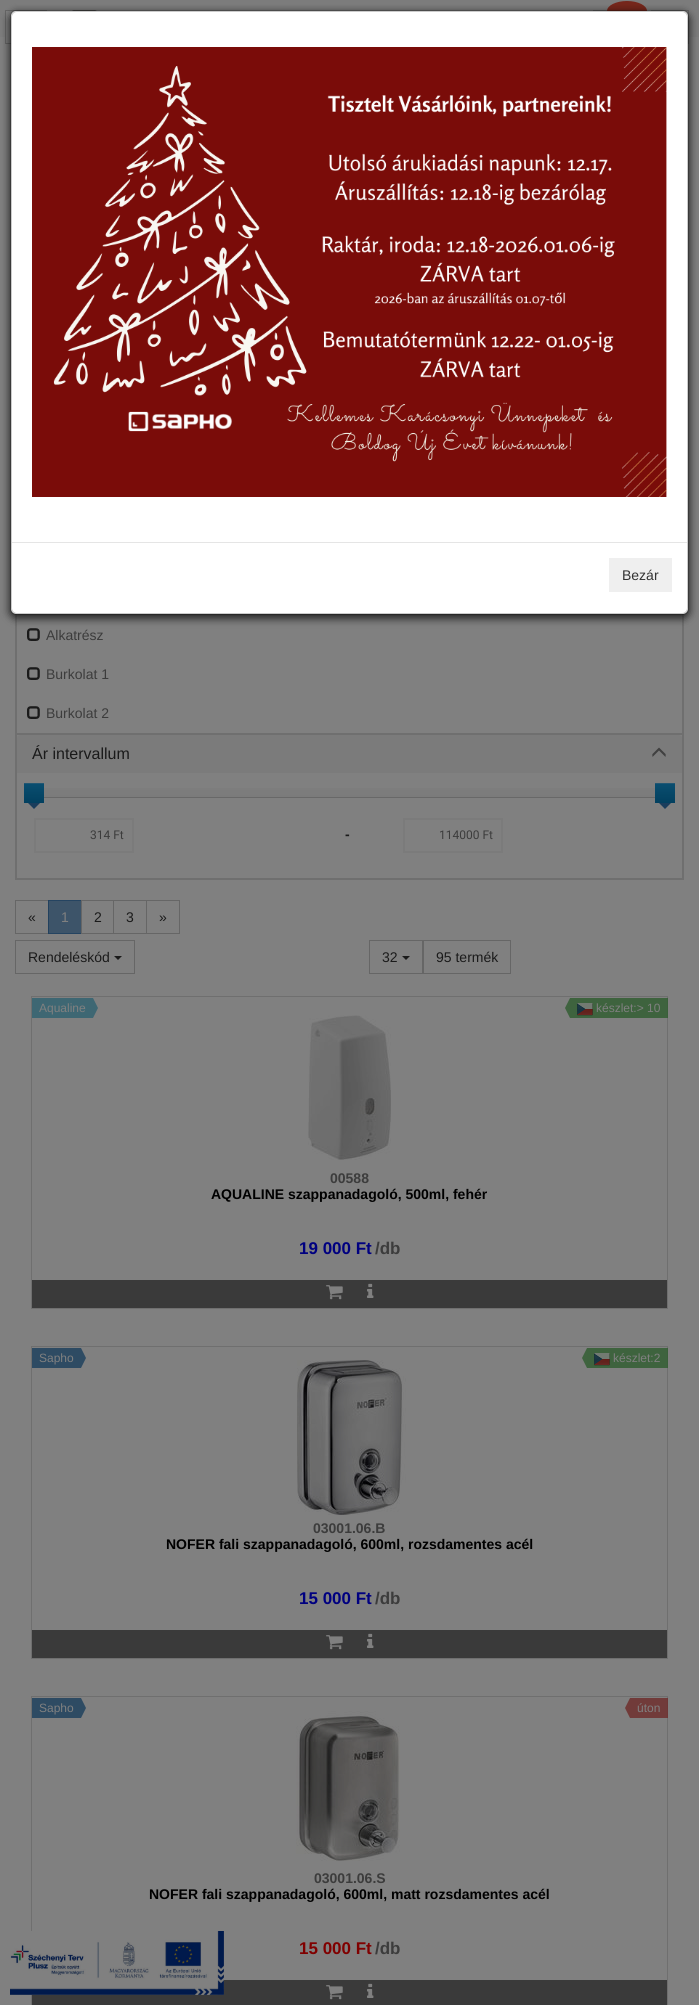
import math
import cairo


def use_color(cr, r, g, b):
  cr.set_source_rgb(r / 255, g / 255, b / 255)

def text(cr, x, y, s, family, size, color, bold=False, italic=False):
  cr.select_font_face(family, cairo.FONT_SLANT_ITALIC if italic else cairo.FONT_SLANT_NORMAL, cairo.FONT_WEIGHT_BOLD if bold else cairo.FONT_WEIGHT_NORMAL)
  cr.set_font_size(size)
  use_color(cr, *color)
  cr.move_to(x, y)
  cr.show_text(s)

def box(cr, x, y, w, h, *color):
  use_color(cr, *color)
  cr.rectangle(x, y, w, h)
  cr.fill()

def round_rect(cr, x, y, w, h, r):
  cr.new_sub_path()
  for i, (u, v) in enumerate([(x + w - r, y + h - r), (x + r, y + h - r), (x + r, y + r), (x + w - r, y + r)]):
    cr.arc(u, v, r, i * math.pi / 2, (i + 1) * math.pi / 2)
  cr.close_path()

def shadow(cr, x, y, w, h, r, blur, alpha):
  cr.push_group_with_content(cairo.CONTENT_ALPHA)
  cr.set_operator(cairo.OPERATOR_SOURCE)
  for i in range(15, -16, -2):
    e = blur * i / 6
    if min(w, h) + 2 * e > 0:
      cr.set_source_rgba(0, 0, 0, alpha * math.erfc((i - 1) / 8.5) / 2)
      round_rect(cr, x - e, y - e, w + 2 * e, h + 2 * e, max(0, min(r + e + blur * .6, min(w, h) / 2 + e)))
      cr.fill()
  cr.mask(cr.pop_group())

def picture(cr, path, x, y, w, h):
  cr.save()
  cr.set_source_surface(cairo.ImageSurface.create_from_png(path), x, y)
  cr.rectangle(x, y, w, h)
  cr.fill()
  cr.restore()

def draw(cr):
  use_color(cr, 128, 128, 128)
  cr.paint()
  box(cr, 0, 0, 699, 37, 124, 124, 124)
  box(cr, 6, 11, 10, 26, 128, 128, 128)
  cr.rectangle(5.5, 10.5, 41, 33)
  use_color(cr, 102, 102, 102)
  cr.set_line_width(1)
  cr.stroke()
  picture(cr, "img_01.png", 72, 10, 25, 1)
  cr.rectangle(593.5, 10.5, 42, 33)
  cr.stroke()
  use_color(cr, 117, 38, 27)
  cr.new_path()
  cr.move_to(627, 1)
  cr.curve_to(638, 1, 647, 5.5, 647, 11)
  cr.curve_to(647, 16.5, 638, 21, 627, 21)
  cr.curve_to(616, 21, 607, 16.5, 607, 11)
  cr.curve_to(607, 5.5, 616, 1, 627, 1)
  cr.close_path()
  cr.fill()
  box(cr, 683, 11, 5, 5, 128, 128, 128)
  cr.rectangle(651.5, 10.5, 37, 33)
  use_color(cr, 102, 102, 102)
  cr.stroke()
  cr.rectangle(15.5, 142.5, 668, 737)
  use_color(cr, 111, 111, 111)
  cr.stroke()
  cr.rectangle(16.5, 459.5, 666, 274)
  cr.stroke()
  picture(cr, "img_03.png", 27, 628, 13, 13)
  use_color(cr, 0, 0, 0)
  shadow(cr, 10, 13, 679, 605, 6, 4.5, 0.5)
  use_color(cr, 255, 255, 255)
  round_rect(cr, 11, 11, 677, 603, 5)
  cr.fill()
  round_rect(cr, 10.5, 10.5, 678, 604, 5.5)
  cr.set_source_rgba(0, 0, 0, 0.2)
  cr.stroke()
  cr.save()
  cr.set_fill_rule(cairo.FILL_RULE_EVEN_ODD)
  cr.new_path()
  cr.move_to(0, 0)
  cr.line_to(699, 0)
  cr.line_to(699, 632)
  cr.line_to(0, 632)
  cr.close_path()
  cr.move_to(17, 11)
  cr.line_to(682, 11)
  cr.curve_to(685.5, 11, 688, 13.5, 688, 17)
  cr.line_to(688, 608)
  cr.curve_to(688, 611.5, 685.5, 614, 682, 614)
  cr.line_to(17, 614)
  cr.curve_to(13.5, 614, 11, 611.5, 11, 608)
  cr.line_to(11, 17)
  cr.curve_to(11, 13.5, 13.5, 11, 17, 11)
  cr.close_path()
  cr.clip()
  use_color(cr, 0, 0, 0)
  shadow(cr, 11, 14, 677, 603, 6, 4.5, 0.5)
  cr.restore()
  round_rect(cr, 11.5, 11.5, 676, 602, 5.5)
  cr.stroke()
  picture(cr, "img_02.png", 32, 47, 635, 450)
  box(cr, 12, 542, 675, 1, 229, 229, 229)
  box(cr, 609, 558, 63, 34, 239, 239, 239)
  picture(cr, "img_03.png", 27, 667, 13, 13)
  picture(cr, "img_03.png", 27, 706, 13, 13)
  cr.rectangle(16.5, 734.5, 666, 144)
  use_color(cr, 111, 111, 111)
  cr.stroke()
  use_color(cr, 123, 123, 123)
  cr.new_path()
  cr.move_to(20, 735)
  cr.line_to(679, 735)
  cr.curve_to(680.5, 735, 682, 736.5, 682, 738)
  cr.line_to(682, 773)
  cr.line_to(17, 773)
  cr.line_to(17, 738)
  cr.curve_to(17, 736.5, 18.5, 735, 20, 735)
  cr.close_path()
  cr.fill()
  picture(cr, "img_04.png", 652, 747, 14, 10)
  gradient = cairo.LinearGradient(350, 788, 350, 798)
  gradient.add_color_stop_rgba(0, 0.49, 0.49, 0.49, 1)
  gradient.add_color_stop_rgba(1, 0.482, 0.482, 0.482, 1)
  cr.set_source(gradient)
  cr.rectangle(44, 788, 611, 9)
  cr.fill()
  use_color(cr, 104, 104, 104)
  cr.new_path()
  cr.move_to(34, 794)
  cr.curve_to(34, 796, 36, 798, 38, 798)
  cr.line_to(661, 798)
  cr.curve_to(663, 798, 664, 797, 665, 795)
  cr.curve_to(664, 796, 663, 797, 661, 797)
  cr.line_to(37, 797)
  cr.curve_to(35, 797, 34, 796, 34, 794)
  cr.close_path()
  cr.fill()
  gradient = cairo.LinearGradient(34, 783, 34, 803)
  gradient.add_color_stop_rgba(0, 0.039, 0.306, 0.439, 1)
  gradient.add_color_stop_rgba(1, 0.008, 0.251, 0.373, 1)
  cr.set_source(gradient)
  cr.rectangle(24, 784, 20, 19)
  cr.fill()
  box(cr, 24, 783, 20, 1, 34, 87, 115)
  use_color(cr, 26, 61, 92)
  cr.new_path()
  cr.move_to(28, 803)
  cr.line_to(40, 803)
  cr.line_to(34, 809)
  cr.close_path()
  cr.fill()
  gradient = cairo.LinearGradient(665, 783, 665, 803)
  gradient.add_color_stop_rgba(0, 0.039, 0.306, 0.439, 1)
  gradient.add_color_stop_rgba(1, 0.008, 0.251, 0.373, 1)
  cr.set_source(gradient)
  cr.rectangle(655, 784, 20, 19)
  cr.fill()
  box(cr, 655, 783, 20, 1, 34, 87, 115)
  use_color(cr, 26, 61, 92)
  cr.new_path()
  cr.move_to(659, 803)
  cr.line_to(671, 803)
  cr.line_to(665, 809)
  cr.close_path()
  cr.fill()
  cr.rectangle(35, 819, 98, 33)
  use_color(cr, 123, 123, 123)
  cr.set_line_width(2)
  cr.stroke()
  cr.rectangle(404, 819, 98, 33)
  cr.stroke()
  cr.rectangle(15.5, 900.5, 33, 33)
  use_color(cr, 102, 102, 102)
  cr.set_line_width(1)
  cr.stroke()
  cr.set_source_rgba(0.102, 0.239, 0.361, 0.65)
  cr.rectangle(48, 900, 33, 34)
  cr.fill()
  cr.rectangle(48.5, 900.5, 33, 33)
  cr.stroke()
  cr.rectangle(81.5, 900.5, 32, 33)
  use_color(cr, 102, 102, 102)
  cr.stroke()
  cr.rectangle(113.5, 900.5, 33, 33)
  cr.stroke()
  cr.rectangle(146.5, 900.5, 33, 33)
  cr.stroke()
  cr.rectangle(15.5, 940.5, 119, 33)
  cr.stroke()
  use_color(cr, 26, 26, 26)
  cr.new_path()
  cr.move_to(114, 956)
  cr.line_to(122, 956)
  cr.line_to(118, 960)
  cr.close_path()
  cr.fill()
  cr.rectangle(369.5, 940.5, 53, 33)
  use_color(cr, 102, 102, 102)
  cr.stroke()
  use_color(cr, 26, 26, 26)
  cr.new_path()
  cr.move_to(402, 956)
  cr.line_to(410, 956)
  cr.line_to(406, 960)
  cr.close_path()
  cr.fill()
  cr.rectangle(423.5, 940.5, 87, 33)
  use_color(cr, 102, 102, 102)
  cr.stroke()
  cr.rectangle(31.5, 996.5, 636, 312)
  use_color(cr, 111, 111, 111)
  cr.stroke()
  box(cr, 32, 998, 61, 20, 62, 103, 115)
  cr.new_path()
  cr.move_to(93, 1018)
  cr.line_to(93, 998)
  cr.line_to(98, 1008)
  cr.close_path()
  cr.fill()
  cr.set_source_rgba(0.18, 0.361, 0.18, 0.8)
  cr.rectangle(570, 998, 98, 20)
  cr.fill()
  use_color(cr, 63, 99, 63)
  cr.new_path()
  cr.move_to(570, 998)
  cr.line_to(570, 1018)
  cr.line_to(565, 1008)
  cr.close_path()
  cr.fill()
  picture(cr, "img_05.png", 577, 1003, 16, 13)
  picture(cr, "img_06.png", 308, 1015, 83, 145)
  box(cr, 32, 1280, 635, 28, 58, 58, 58)
  picture(cr, "img_07.png", 326, 1285, 17, 15)
  picture(cr, "img_08.png", 367, 1283, 7, 15)
  cr.rectangle(31.5, 1346.5, 636, 312)
  use_color(cr, 111, 111, 111)
  cr.stroke()
  box(cr, 32, 1348, 49, 20, 46, 75, 99)
  cr.new_path()
  cr.move_to(81, 1368)
  cr.line_to(81, 1348)
  cr.line_to(86, 1358)
  cr.close_path()
  cr.fill()
  cr.set_source_rgba(0.18, 0.361, 0.18, 0.8)
  cr.rectangle(587, 1348, 81, 20)
  cr.fill()
  use_color(cr, 63, 99, 63)
  cr.new_path()
  cr.move_to(587, 1348)
  cr.line_to(587, 1368)
  cr.line_to(582, 1358)
  cr.close_path()
  cr.fill()
  picture(cr, "img_05.png", 594, 1353, 16, 13)
  picture(cr, "img_09.png", 297, 1360, 109, 155)
  box(cr, 32, 1630, 635, 28, 58, 58, 58)
  picture(cr, "img_07.png", 326, 1635, 17, 15)
  picture(cr, "img_08.png", 367, 1633, 7, 15)
  cr.rectangle(31.5, 1696.5, 636, 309)
  use_color(cr, 111, 111, 111)
  cr.stroke()
  box(cr, 32, 1698, 49, 20, 46, 75, 99)
  cr.new_path()
  cr.move_to(81, 1718)
  cr.line_to(81, 1698)
  cr.line_to(86, 1708)
  cr.close_path()
  cr.fill()
  cr.set_source_rgba(0.427, 0.165, 0.157, 0.8)
  cr.rectangle(630, 1698, 38, 20)
  cr.fill()
  use_color(cr, 113, 59, 57)
  cr.new_path()
  cr.move_to(630, 1698)
  cr.line_to(630, 1718)
  cr.line_to(625, 1708)
  cr.close_path()
  cr.fill()
  picture(cr, "img_10.png", 296, 1711, 104, 150)
  box(cr, 32, 1980, 635, 25, 58, 58, 58)
  picture(cr, "img_07.png", 326, 1985, 17, 15)
  picture(cr, "img_08.png", 367, 1983, 7, 15)
  picture(cr, "img_11.png", 10, 1931, 214, 64)
  text(cr, 622, 580, "Bezár", "Liberation Sans", 14, (51, 51, 51))
  text(cr, 46, 640, "Alkatrész", "Liberation Sans", 14, (60, 60, 60))
  text(cr, 46, 679, "Burkolat 1", "Liberation Sans", 14, (60, 60, 60))
  text(cr, 46, 718, "Burkolat 2", "Liberation Sans", 14, (60, 60, 60))
  text(cr, 32, 759, "Ár intervallum", "Liberation Sans", 16, (26, 26, 26))
  text(cr, 90, 839, "314 Ft", "Roboto", 12, (60, 60, 60))
  text(cr, 345, 839, "-", "Liberation Sans", 14, (26, 26, 26), bold=True)
  text(cr, 439, 839, "114000 Ft", "Roboto", 12, (60, 60, 60))
  text(cr, 28, 922, "«", "Liberation Sans", 14, (26, 26, 26))
  text(cr, 61, 922, "1", "Liberation Sans", 14, (128, 128, 128))
  text(cr, 94, 922, "2", "Liberation Sans", 14, (26, 26, 26))
  text(cr, 126, 922, "3", "Liberation Sans", 14, (26, 26, 26))
  text(cr, 159, 922, "»", "Liberation Sans", 14, (26, 26, 26))
  text(cr, 28, 962, "Rendeléskód", "Liberation Sans", 14, (26, 26, 26))
  text(cr, 382, 962, "32", "Liberation Sans", 14, (26, 26, 26))
  text(cr, 436, 962, "95 termék", "Liberation Sans", 14, (26, 26, 26))
  text(cr, 39, 1012, "Aqualine", "Liberation Sans", 12, (128, 128, 128))
  text(cr, 596, 1012, "készlet:> 10", "Liberation Sans", 12, (128, 128, 128))
  text(cr, 330, 1183, "00588", "Liberation Sans", 14, (60, 60, 60), bold=True)
  text(cr, 211, 1199, "AQUALINE szappanadagoló, 500ml, fehér", "Liberation Sans", 14, (0, 0, 0), bold=True)
  text(cr, 299, 1254, "19 000 Ft", "Liberation Sans", 17, (0, 0, 128), bold=True)
  text(cr, 375, 1254, "/db", "Liberation Sans", 17, (60, 60, 60), bold=True)
  text(cr, 39, 1362, "Sapho", "Liberation Sans", 12, (128, 128, 128))
  text(cr, 613, 1362, "készlet:2", "Liberation Sans", 12, (128, 128, 128))
  text(cr, 313, 1533, "03001.06.B", "Liberation Sans", 14, (60, 60, 60), bold=True)
  text(cr, 166, 1549, "NOFER fali szappanadagoló, 600ml, rozsdamentes acél", "Liberation Sans", 14, (0, 0, 0), bold=True)
  text(cr, 299, 1604, "15 000 Ft", "Liberation Sans", 17, (0, 0, 128), bold=True)
  text(cr, 375, 1604, "/db", "Liberation Sans", 17, (60, 60, 60), bold=True)
  text(cr, 39, 1712, "Sapho", "Liberation Sans", 12, (128, 128, 128))
  text(cr, 637, 1712, "úton", "Liberation Sans", 12, (128, 128, 128))
  text(cr, 314, 1883, "03001.06.S", "Liberation Sans", 14, (60, 60, 60), bold=True)
  text(cr, 149, 1899, "NOFER fali szappanadagoló, 600ml, matt rozsdamentes acél", "Liberation Sans", 14, (0, 0, 0), bold=True)
  text(cr, 299, 1954, "15 000 Ft", "Liberation Sans", 17, (128, 0, 0), bold=True)
  text(cr, 375, 1954, "/db", "Liberation Sans", 17, (60, 60, 60), bold=True)


surface = cairo.ImageSurface(cairo.FORMAT_RGB24, 699, 2005)
cr = cairo.Context(surface)
options = cairo.FontOptions()
options.set_hint_metrics(cairo.HINT_METRICS_OFF)
options.set_hint_style(cairo.HINT_STYLE_NONE)
cr.set_font_options(options)
cr.set_miter_limit(4)
draw(cr)
surface.write_to_png("out.png")
